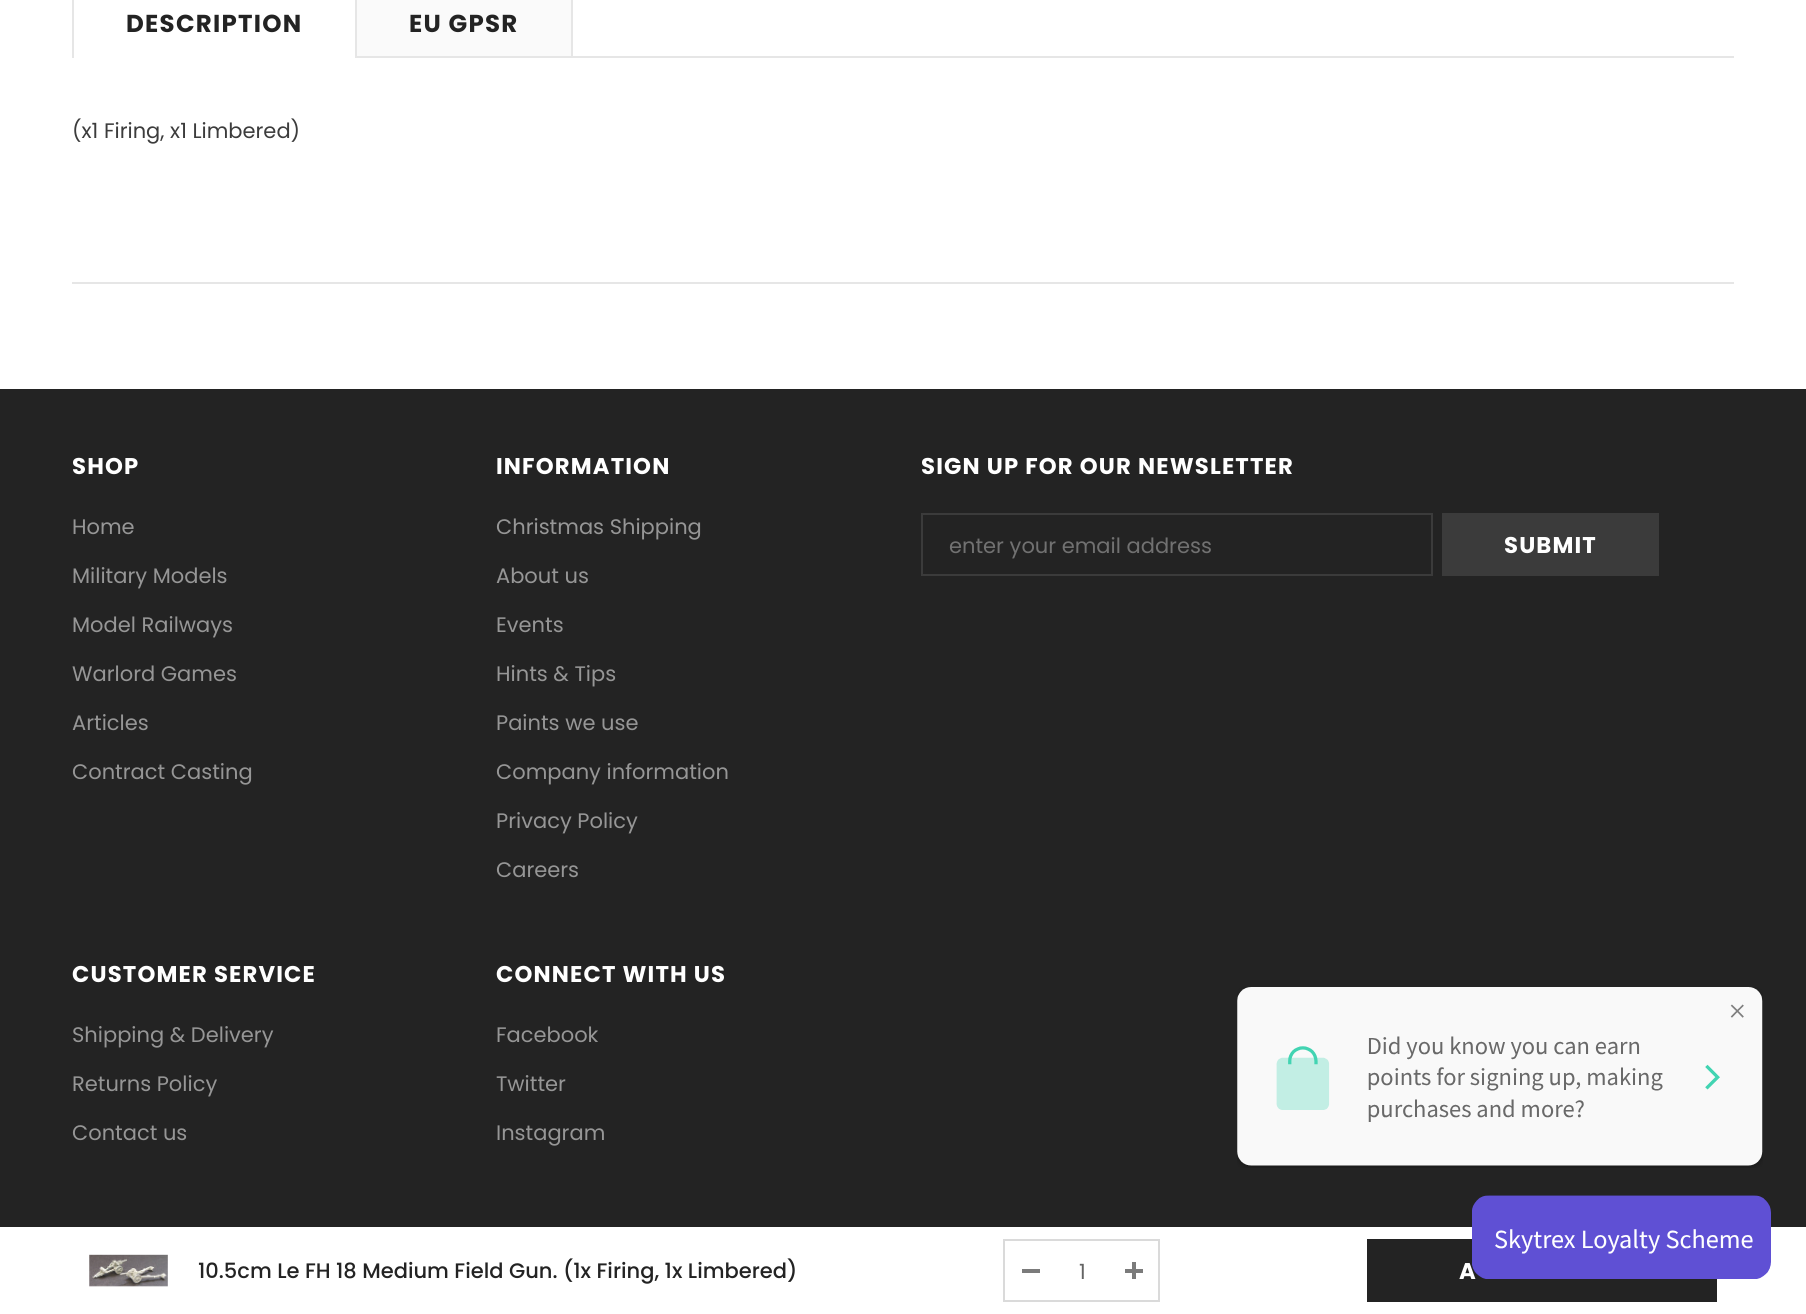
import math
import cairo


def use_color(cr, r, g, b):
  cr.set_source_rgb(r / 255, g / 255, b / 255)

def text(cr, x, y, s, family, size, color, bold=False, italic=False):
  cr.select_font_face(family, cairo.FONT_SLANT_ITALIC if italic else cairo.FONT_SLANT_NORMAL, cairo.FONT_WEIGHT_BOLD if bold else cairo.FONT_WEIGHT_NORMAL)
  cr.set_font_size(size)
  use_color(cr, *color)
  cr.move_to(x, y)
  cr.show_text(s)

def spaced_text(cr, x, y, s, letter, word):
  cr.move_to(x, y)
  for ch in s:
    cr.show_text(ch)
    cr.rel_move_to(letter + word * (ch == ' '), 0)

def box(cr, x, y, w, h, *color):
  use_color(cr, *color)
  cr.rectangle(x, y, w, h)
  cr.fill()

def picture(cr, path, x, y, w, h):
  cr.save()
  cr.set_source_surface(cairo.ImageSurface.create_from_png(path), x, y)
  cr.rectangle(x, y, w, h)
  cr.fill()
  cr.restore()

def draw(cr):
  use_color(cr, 255, 255, 255)
  cr.paint()
  box(cr, 72, 56, 1662, 2, 230, 230, 230)
  box(cr, 72, 0, 2, 56, 230, 230, 230)
  box(cr, 74, 56, 281, 2, 255, 255, 255)
  box(cr, 357, 0, 214, 56, 250, 250, 250)
  box(cr, 571, 0, 2, 56, 230, 230, 230)
  box(cr, 355, 0, 2, 56, 230, 230, 230)
  box(cr, 72, 282, 1662, 2, 230, 230, 230)
  picture(cr, "img_01.png", 89, 1254, 79, 33)
  cr.rectangle(1004, 1240, 155, 61)
  use_color(cr, 218, 218, 218)
  cr.stroke()
  box(cr, 1022, 1269, 18, 4, 123, 123, 123)
  box(cr, 1125, 1269, 18, 4, 123, 123, 123)
  box(cr, 1132, 1262, 4, 17, 123, 123, 123)
  box(cr, 1367, 1239, 350, 63, 35, 35, 35)
  box(cr, 0, 389, 1806, 838, 35, 35, 35)
  cr.rectangle(922, 514, 510, 61)
  use_color(cr, 59, 59, 59)
  cr.stroke()
  box(cr, 1442, 513, 217, 63, 59, 59, 59)
  picture(cr, "img_02.png", 1237, 987, 526, 181)
  cr.select_font_face("Poppins", cairo.FONT_SLANT_NORMAL, cairo.FONT_WEIGHT_BOLD)
  cr.set_font_size(24.5)
  use_color(cr, 35, 35, 35)
  spaced_text(cr, 126, 32, "DESCRIPTION", 1.25, 0)
  spaced_text(cr, 409, 32, "EU GPSR", 1.25, 0)
  text(cr, 72, 138, "(x1 Firing, x1 Limbered)", "Poppins", 21, (60, 60, 60))
  text(cr, 198, 1278, "10.5cm Le FH 18 Medium Field Gun. (1x Firing, 1x Limbered)", "Poppins Medium", 21, (35, 35, 35))
  text(cr, 1079, 1279, "1", "Poppins", 21, (100, 100, 100))
  cr.select_font_face("Poppins", cairo.FONT_SLANT_NORMAL, cairo.FONT_WEIGHT_BOLD)
  cr.set_font_size(22.75)
  use_color(cr, 255, 255, 255)
  spaced_text(cr, 1459, 1279, "A", 1.15, 0)
  spaced_text(cr, 72, 474, "SHOP", 1.15, 0)
  text(cr, 72, 534, "Home", "Poppins", 21, (150, 150, 150))
  text(cr, 72, 583, "Military Models", "Poppins", 21, (150, 150, 150))
  text(cr, 72, 632, "Model Railways", "Poppins", 21, (150, 150, 150))
  text(cr, 72, 681, "Warlord Games", "Poppins", 21, (150, 150, 150))
  text(cr, 72, 730, "Articles", "Poppins", 21, (150, 150, 150))
  text(cr, 72, 779, "Contract Casting", "Poppins", 21, (150, 150, 150))
  cr.select_font_face("Poppins", cairo.FONT_SLANT_NORMAL, cairo.FONT_WEIGHT_BOLD)
  cr.set_font_size(22.75)
  use_color(cr, 255, 255, 255)
  spaced_text(cr, 496, 474, "INFORMATION", 1.15, 0)
  text(cr, 496, 534, "Christmas Shipping", "Poppins", 21, (150, 150, 150))
  text(cr, 496, 583, "About us", "Poppins", 21, (150, 150, 150))
  text(cr, 496, 632, "Events", "Poppins", 21, (150, 150, 150))
  text(cr, 496, 681, "Hints & Tips", "Poppins", 21, (150, 150, 150))
  text(cr, 496, 730, "Paints we use", "Poppins", 21, (150, 150, 150))
  text(cr, 496, 779, "Company information", "Poppins", 21, (150, 150, 150))
  text(cr, 496, 828, "Privacy Policy", "Poppins", 21, (150, 150, 150))
  text(cr, 496, 877, "Careers", "Poppins", 21, (150, 150, 150))
  cr.select_font_face("Poppins", cairo.FONT_SLANT_NORMAL, cairo.FONT_WEIGHT_BOLD)
  cr.set_font_size(22.75)
  use_color(cr, 255, 255, 255)
  spaced_text(cr, 72, 982, "CUSTOMER SERVICE", 1.15, 0)
  text(cr, 72, 1042, "Shipping & Delivery", "Poppins", 21, (150, 150, 150))
  text(cr, 72, 1091, "Returns Policy", "Poppins", 21, (150, 150, 150))
  text(cr, 72, 1140, "Contact us", "Poppins", 21, (150, 150, 150))
  cr.select_font_face("Poppins", cairo.FONT_SLANT_NORMAL, cairo.FONT_WEIGHT_BOLD)
  cr.set_font_size(22.75)
  use_color(cr, 255, 255, 255)
  spaced_text(cr, 496, 982, "CONNECT WITH US", 1.15, 0)
  text(cr, 496, 1042, "Facebook", "Poppins", 21, (150, 150, 150))
  text(cr, 496, 1091, "Twitter", "Poppins", 21, (150, 150, 150))
  text(cr, 496, 1140, "Instagram", "Poppins", 21, (150, 150, 150))
  cr.select_font_face("Poppins", cairo.FONT_SLANT_NORMAL, cairo.FONT_WEIGHT_BOLD)
  cr.set_font_size(22.75)
  use_color(cr, 255, 255, 255)
  spaced_text(cr, 921, 474, "SIGN UP FOR OUR NEWSLETTER", 1.15, 0)
  text(cr, 949, 553, "enter your email address", "Poppins", 21, (113, 113, 113))
  cr.select_font_face("Poppins", cairo.FONT_SLANT_NORMAL, cairo.FONT_WEIGHT_BOLD)
  cr.set_font_size(22.75)
  use_color(cr, 255, 255, 255)
  spaced_text(cr, 1504, 553, "SUBMIT", 1.15, 0)
  picture(cr, "img_03.png", 1472, 1195, 299, 84)


surface = cairo.ImageSurface(cairo.FORMAT_RGB24, 1806, 1314)
cr = cairo.Context(surface)
options = cairo.FontOptions()
options.set_hint_metrics(cairo.HINT_METRICS_OFF)
options.set_hint_style(cairo.HINT_STYLE_NONE)
cr.set_font_options(options)
cr.set_miter_limit(4)
draw(cr)
surface.write_to_png("out.png")
